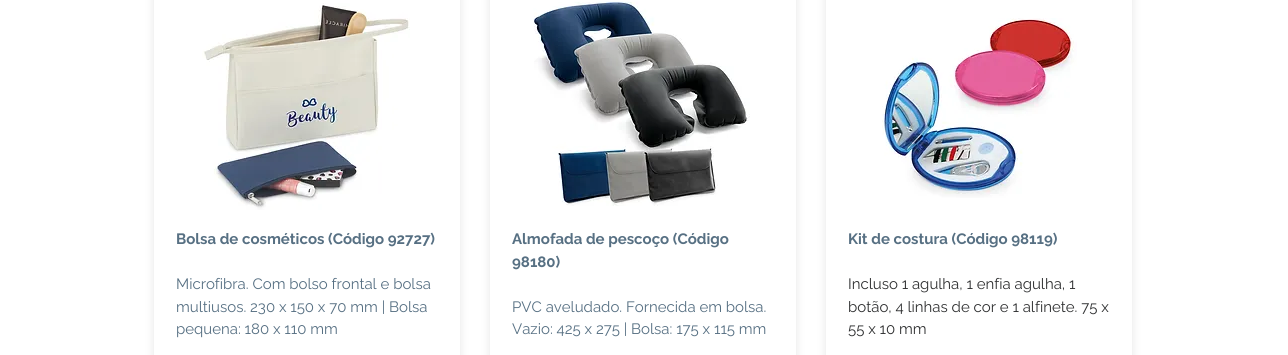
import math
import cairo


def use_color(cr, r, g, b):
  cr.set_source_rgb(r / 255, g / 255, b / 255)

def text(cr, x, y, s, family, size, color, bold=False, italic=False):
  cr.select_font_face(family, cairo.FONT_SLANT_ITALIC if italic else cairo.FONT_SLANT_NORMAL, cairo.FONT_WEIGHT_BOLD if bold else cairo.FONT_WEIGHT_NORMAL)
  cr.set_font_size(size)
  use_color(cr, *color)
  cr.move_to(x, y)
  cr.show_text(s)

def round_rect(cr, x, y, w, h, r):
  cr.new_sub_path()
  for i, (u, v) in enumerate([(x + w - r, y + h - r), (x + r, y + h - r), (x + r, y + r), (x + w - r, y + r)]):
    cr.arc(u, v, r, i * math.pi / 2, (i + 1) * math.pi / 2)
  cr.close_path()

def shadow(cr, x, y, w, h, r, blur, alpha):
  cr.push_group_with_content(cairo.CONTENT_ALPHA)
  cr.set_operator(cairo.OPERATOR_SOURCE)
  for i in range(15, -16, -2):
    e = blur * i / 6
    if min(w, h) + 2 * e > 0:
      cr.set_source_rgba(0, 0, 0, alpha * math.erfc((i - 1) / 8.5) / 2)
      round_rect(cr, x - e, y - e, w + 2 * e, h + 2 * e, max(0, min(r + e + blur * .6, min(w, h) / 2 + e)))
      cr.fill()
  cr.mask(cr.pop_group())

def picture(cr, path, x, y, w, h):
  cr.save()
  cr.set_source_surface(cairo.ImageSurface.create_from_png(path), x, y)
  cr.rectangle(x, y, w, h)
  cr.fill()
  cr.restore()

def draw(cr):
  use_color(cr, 255, 255, 255)
  cr.paint()
  cr.save()
  cr.set_fill_rule(cairo.FILL_RULE_EVEN_ODD)
  cr.new_path()
  cr.move_to(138, 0)
  cr.line_to(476, 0)
  cr.line_to(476, 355)
  cr.line_to(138, 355)
  cr.close_path()
  cr.move_to(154, -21)
  cr.line_to(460, -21)
  cr.line_to(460, 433)
  cr.line_to(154, 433)
  cr.close_path()
  cr.clip()
  use_color(cr, 0, 0, 0)
  shadow(cr, 154, -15, 306, 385, 0, 5, 0.1)
  cr.restore()
  picture(cr, "img_01.png", 202, 3, 208, 207)
  cr.save()
  cr.set_fill_rule(cairo.FILL_RULE_EVEN_ODD)
  cr.new_path()
  cr.move_to(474, 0)
  cr.line_to(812, 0)
  cr.line_to(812, 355)
  cr.line_to(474, 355)
  cr.close_path()
  cr.move_to(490, -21)
  cr.line_to(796, -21)
  cr.line_to(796, 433)
  cr.line_to(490, 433)
  cr.close_path()
  cr.clip()
  use_color(cr, 0, 0, 0)
  shadow(cr, 490, -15, 306, 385, 0, 5, 0.1)
  cr.restore()
  picture(cr, "img_02.png", 533, 1, 217, 205)
  cr.save()
  cr.set_fill_rule(cairo.FILL_RULE_EVEN_ODD)
  cr.new_path()
  cr.move_to(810, 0)
  cr.line_to(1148, 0)
  cr.line_to(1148, 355)
  cr.line_to(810, 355)
  cr.close_path()
  cr.move_to(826, -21)
  cr.line_to(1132, -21)
  cr.line_to(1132, 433)
  cr.line_to(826, 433)
  cr.close_path()
  cr.clip()
  use_color(cr, 0, 0, 0)
  shadow(cr, 826, -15, 306, 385, 0, 5, 0.1)
  cr.restore()
  picture(cr, "img_03.png", 882, 18, 195, 180)
  text(cr, 176, 244, "Bolsa de cosméticos (Código 92727)", "Raleway", 15, (87, 112, 131), bold=True)
  text(cr, 176, 289, "Microfibra. Com bolso frontal e bolsa", "Raleway", 15, (87, 112, 131))
  text(cr, 176, 312, "multiusos. 230 x 150 x 70 mm | Bolsa", "Raleway", 15, (87, 112, 131))
  text(cr, 176, 334, "pequena: 180 x 110 mm", "Raleway", 15, (87, 112, 131))
  text(cr, 512, 244, "Almofada de pescoço (Código", "Raleway", 15, (87, 112, 131), bold=True)
  text(cr, 512, 267, "98180)", "Raleway", 15, (87, 112, 131), bold=True)
  text(cr, 512, 312, "PVC aveludado. Fornecida em bolsa.", "Raleway", 15, (87, 112, 131))
  text(cr, 512, 334, "Vazio: 425 x 275 | Bolsa: 175 x 115 mm", "Raleway", 15, (87, 112, 131))
  text(cr, 848, 244, "Kit de costura (Código 98119)", "Raleway", 15, (87, 112, 131), bold=True)
  text(cr, 848, 289, "Incluso 1 agulha, 1 enfia agulha, 1", "Raleway", 15, (48, 49, 50))
  text(cr, 848, 312, "botão, 4 linhas de cor e 1 alfinete. 75 x", "Raleway", 15, (48, 49, 50))
  text(cr, 848, 334, "55 x 10 mm", "Raleway", 15, (48, 49, 50))


surface = cairo.ImageSurface(cairo.FORMAT_RGB24, 1288, 355)
cr = cairo.Context(surface)
options = cairo.FontOptions()
options.set_hint_metrics(cairo.HINT_METRICS_OFF)
options.set_hint_style(cairo.HINT_STYLE_NONE)
cr.set_font_options(options)
cr.set_miter_limit(4)
draw(cr)
surface.write_to_png("out.png")
